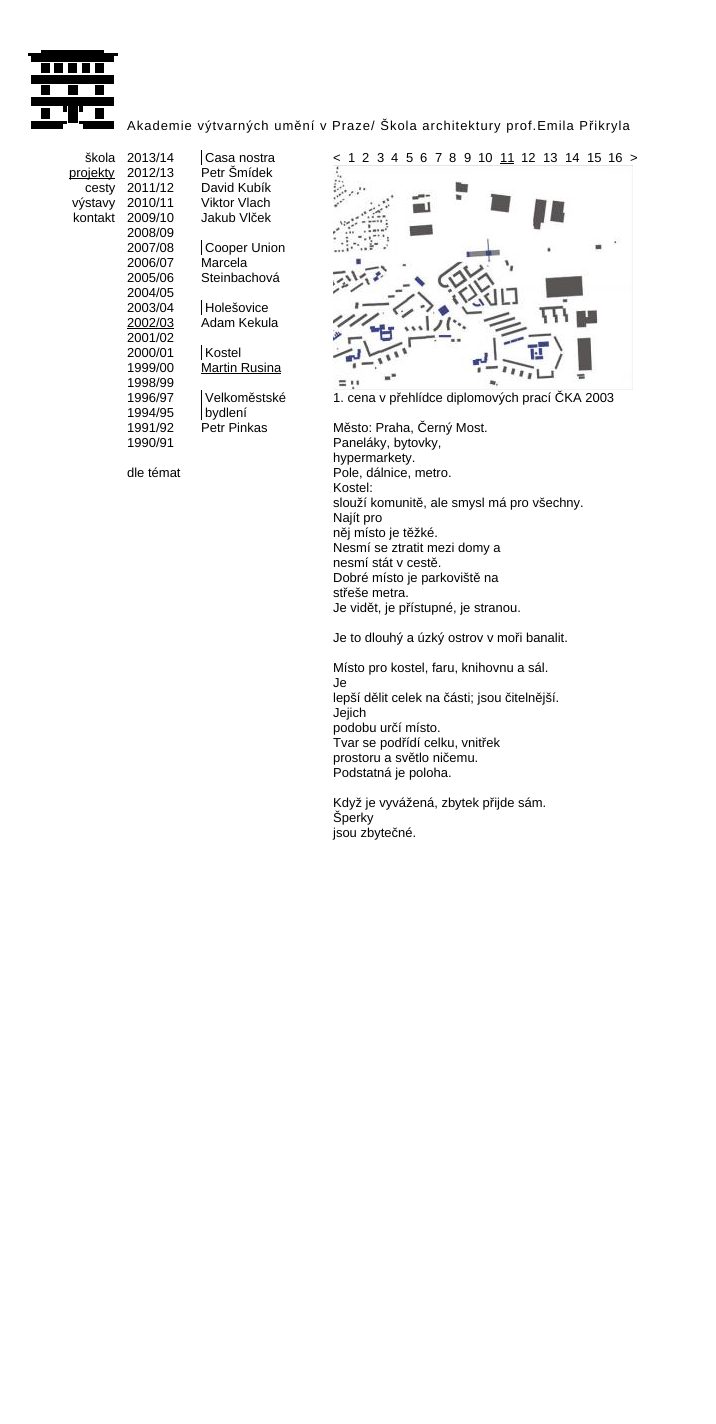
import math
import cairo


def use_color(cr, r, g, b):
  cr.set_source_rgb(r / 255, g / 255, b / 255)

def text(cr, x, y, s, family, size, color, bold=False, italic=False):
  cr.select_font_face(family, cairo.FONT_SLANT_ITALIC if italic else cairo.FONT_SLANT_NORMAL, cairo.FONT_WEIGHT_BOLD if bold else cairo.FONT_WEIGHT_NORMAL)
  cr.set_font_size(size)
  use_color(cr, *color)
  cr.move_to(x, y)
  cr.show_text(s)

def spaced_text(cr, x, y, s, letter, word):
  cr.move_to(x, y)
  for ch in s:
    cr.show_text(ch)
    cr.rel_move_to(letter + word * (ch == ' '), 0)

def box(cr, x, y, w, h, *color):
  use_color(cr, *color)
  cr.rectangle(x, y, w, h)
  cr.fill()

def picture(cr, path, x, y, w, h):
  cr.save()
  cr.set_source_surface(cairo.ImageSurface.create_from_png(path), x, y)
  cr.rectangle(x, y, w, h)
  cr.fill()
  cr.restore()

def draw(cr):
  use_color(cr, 255, 255, 255)
  cr.paint()
  picture(cr, "img_01.png", 28, 50, 90, 79)
  box(cr, 69, 178, 46, 1, 0, 0, 0)
  box(cr, 127, 328, 47, 1, 0, 0, 0)
  box(cr, 201, 150, 1, 15, 0, 0, 0)
  box(cr, 201, 240, 1, 15, 0, 0, 0)
  box(cr, 201, 300, 1, 15, 0, 0, 0)
  box(cr, 201, 345, 1, 15, 0, 0, 0)
  box(cr, 201, 373, 80, 1, 0, 0, 0)
  box(cr, 201, 390, 1, 30, 0, 0, 0)
  box(cr, 500, 163, 14, 1, 0, 0, 0)
  picture(cr, "img_02.png", 333, 165, 300, 225)
  text(cr, 85, 162, "škola", "Liberation Sans", 13, (0, 0, 0))
  text(cr, 69, 177, "projekty", "Liberation Sans", 13, (0, 0, 0))
  text(cr, 85, 192, "cesty", "Liberation Sans", 13, (0, 0, 0))
  text(cr, 72, 207, "výstavy", "Liberation Sans", 13, (0, 0, 0))
  text(cr, 73, 222, "kontakt", "Liberation Sans", 13, (0, 0, 0))
  spaced_text(cr, 127, 130, "Akademie výtvarných umění v Praze/ Škola architektury prof.Emila Přikryla", 1, 0)
  text(cr, 127, 162, "2013/14", "Liberation Sans", 13, (0, 0, 0))
  text(cr, 127, 177, "2012/13", "Liberation Sans", 13, (0, 0, 0))
  text(cr, 127, 192, "2011/12", "Liberation Sans", 13, (0, 0, 0))
  text(cr, 127, 207, "2010/11", "Liberation Sans", 13, (0, 0, 0))
  text(cr, 127, 222, "2009/10", "Liberation Sans", 13, (0, 0, 0))
  text(cr, 127, 237, "2008/09", "Liberation Sans", 13, (0, 0, 0))
  text(cr, 127, 252, "2007/08", "Liberation Sans", 13, (0, 0, 0))
  text(cr, 127, 267, "2006/07", "Liberation Sans", 13, (0, 0, 0))
  text(cr, 127, 282, "2005/06", "Liberation Sans", 13, (0, 0, 0))
  text(cr, 127, 297, "2004/05", "Liberation Sans", 13, (0, 0, 0))
  text(cr, 127, 312, "2003/04", "Liberation Sans", 13, (0, 0, 0))
  text(cr, 127, 327, "2002/03", "Liberation Sans", 13, (0, 0, 0))
  text(cr, 127, 342, "2001/02", "Liberation Sans", 13, (0, 0, 0))
  text(cr, 127, 357, "2000/01", "Liberation Sans", 13, (0, 0, 0))
  text(cr, 127, 372, "1999/00", "Liberation Sans", 13, (0, 0, 0))
  text(cr, 127, 387, "1998/99", "Liberation Sans", 13, (0, 0, 0))
  text(cr, 127, 402, "1996/97", "Liberation Sans", 13, (0, 0, 0))
  text(cr, 127, 417, "1994/95", "Liberation Sans", 13, (0, 0, 0))
  text(cr, 127, 432, "1991/92", "Liberation Sans", 13, (0, 0, 0))
  text(cr, 127, 447, "1990/91", "Liberation Sans", 13, (0, 0, 0))
  text(cr, 127, 477, "dle témat", "Liberation Sans", 13, (0, 0, 0))
  text(cr, 205, 162, "Casa nostra", "Liberation Sans", 13, (0, 0, 0))
  text(cr, 201, 177, "Petr Šmídek", "Liberation Sans", 13, (0, 0, 0))
  text(cr, 201, 192, "David Kubík", "Liberation Sans", 13, (0, 0, 0))
  text(cr, 201, 207, "Viktor Vlach", "Liberation Sans", 13, (0, 0, 0))
  text(cr, 201, 222, "Jakub Vlček", "Liberation Sans", 13, (0, 0, 0))
  text(cr, 205, 252, "Cooper Union", "Liberation Sans", 13, (0, 0, 0))
  text(cr, 201, 267, "Marcela", "Liberation Sans", 13, (0, 0, 0))
  text(cr, 201, 282, "Steinbachová", "Liberation Sans", 13, (0, 0, 0))
  text(cr, 205, 312, "Holešovice", "Liberation Sans", 13, (0, 0, 0))
  text(cr, 201, 327, "Adam Kekula", "Liberation Sans", 13, (0, 0, 0))
  text(cr, 205, 357, "Kostel", "Liberation Sans", 13, (0, 0, 0))
  text(cr, 201, 372, "Martin Rusina", "Liberation Sans", 13, (0, 0, 0))
  text(cr, 205, 402, "Velkoměstské", "Liberation Sans", 13, (0, 0, 0))
  text(cr, 205, 417, "bydlení", "Liberation Sans", 13, (0, 0, 0))
  text(cr, 201, 432, "Petr Pinkas", "Liberation Sans", 13, (0, 0, 0))
  text(cr, 333, 162, "<", "Liberation Sans", 13, (0, 0, 0))
  text(cr, 348, 162, "1", "Liberation Sans", 13, (0, 0, 0))
  text(cr, 362, 162, "2", "Liberation Sans", 13, (0, 0, 0))
  text(cr, 377, 162, "3", "Liberation Sans", 13, (0, 0, 0))
  text(cr, 391, 162, "4", "Liberation Sans", 13, (0, 0, 0))
  text(cr, 406, 162, "5", "Liberation Sans", 13, (0, 0, 0))
  text(cr, 420, 162, "6", "Liberation Sans", 13, (0, 0, 0))
  text(cr, 435, 162, "7", "Liberation Sans", 13, (0, 0, 0))
  text(cr, 449, 162, "8", "Liberation Sans", 13, (0, 0, 0))
  text(cr, 464, 162, "9", "Liberation Sans", 13, (0, 0, 0))
  text(cr, 478, 162, "10", "Liberation Sans", 13, (0, 0, 0))
  text(cr, 500, 162, "11", "Liberation Sans", 13, (0, 0, 0))
  text(cr, 521, 162, "12", "Liberation Sans", 13, (0, 0, 0))
  text(cr, 543, 162, "13", "Liberation Sans", 13, (0, 0, 0))
  text(cr, 565, 162, "14", "Liberation Sans", 13, (0, 0, 0))
  text(cr, 587, 162, "15", "Liberation Sans", 13, (0, 0, 0))
  text(cr, 608, 162, "16", "Liberation Sans", 13, (0, 0, 0))
  text(cr, 630, 162, ">", "Liberation Sans", 13, (0, 0, 0))
  text(cr, 333, 402, "1. cena v přehlídce diplomových prací ČKA 2003", "Liberation Sans", 13, (0, 0, 0))
  text(cr, 333, 432, "Město: Praha, Černý Most.", "Liberation Sans", 13, (0, 0, 0))
  text(cr, 333, 447, "Paneláky, bytovky,", "Liberation Sans", 13, (0, 0, 0))
  text(cr, 333, 462, "hypermarkety.", "Liberation Sans", 13, (0, 0, 0))
  text(cr, 333, 477, "Pole, dálnice, metro.", "Liberation Sans", 13, (0, 0, 0))
  text(cr, 333, 492, "Kostel:", "Liberation Sans", 13, (0, 0, 0))
  text(cr, 333, 507, "slouží komunitě, ale smysl má pro všechny.", "Liberation Sans", 13, (0, 0, 0))
  text(cr, 333, 522, "Najít pro", "Liberation Sans", 13, (0, 0, 0))
  text(cr, 333, 537, "něj místo je těžké.", "Liberation Sans", 13, (0, 0, 0))
  text(cr, 333, 552, "Nesmí se ztratit mezi domy a", "Liberation Sans", 13, (0, 0, 0))
  text(cr, 333, 567, "nesmí stát v cestě.", "Liberation Sans", 13, (0, 0, 0))
  text(cr, 333, 582, "Dobré místo je parkoviště na", "Liberation Sans", 13, (0, 0, 0))
  text(cr, 333, 597, "střeše metra.", "Liberation Sans", 13, (0, 0, 0))
  text(cr, 333, 612, "Je vidět, je přístupné, je stranou.", "Liberation Sans", 13, (0, 0, 0))
  text(cr, 333, 642, "Je to dlouhý a úzký ostrov v moři banalit.", "Liberation Sans", 13, (0, 0, 0))
  text(cr, 333, 672, "Místo pro kostel, faru, knihovnu a sál.", "Liberation Sans", 13, (0, 0, 0))
  text(cr, 333, 687, "Je", "Liberation Sans", 13, (0, 0, 0))
  text(cr, 333, 702, "lepší dělit celek na části; jsou čitelnější.", "Liberation Sans", 13, (0, 0, 0))
  text(cr, 333, 717, "Jejich", "Liberation Sans", 13, (0, 0, 0))
  text(cr, 333, 732, "podobu určí místo.", "Liberation Sans", 13, (0, 0, 0))
  text(cr, 333, 747, "Tvar se podřídí celku, vnitřek", "Liberation Sans", 13, (0, 0, 0))
  text(cr, 333, 762, "prostoru a světlo ničemu.", "Liberation Sans", 13, (0, 0, 0))
  text(cr, 333, 777, "Podstatná je poloha.", "Liberation Sans", 13, (0, 0, 0))
  text(cr, 333, 807, "Když je vyvážená, zbytek přijde sám.", "Liberation Sans", 13, (0, 0, 0))
  text(cr, 333, 822, "Šperky", "Liberation Sans", 13, (0, 0, 0))
  text(cr, 333, 837, "jsou zbytečné.", "Liberation Sans", 13, (0, 0, 0))


surface = cairo.ImageSurface(cairo.FORMAT_RGB24, 716, 1424)
cr = cairo.Context(surface)
options = cairo.FontOptions()
options.set_hint_metrics(cairo.HINT_METRICS_OFF)
options.set_hint_style(cairo.HINT_STYLE_NONE)
cr.set_font_options(options)
cr.set_miter_limit(4)
draw(cr)
surface.write_to_png("out.png")
